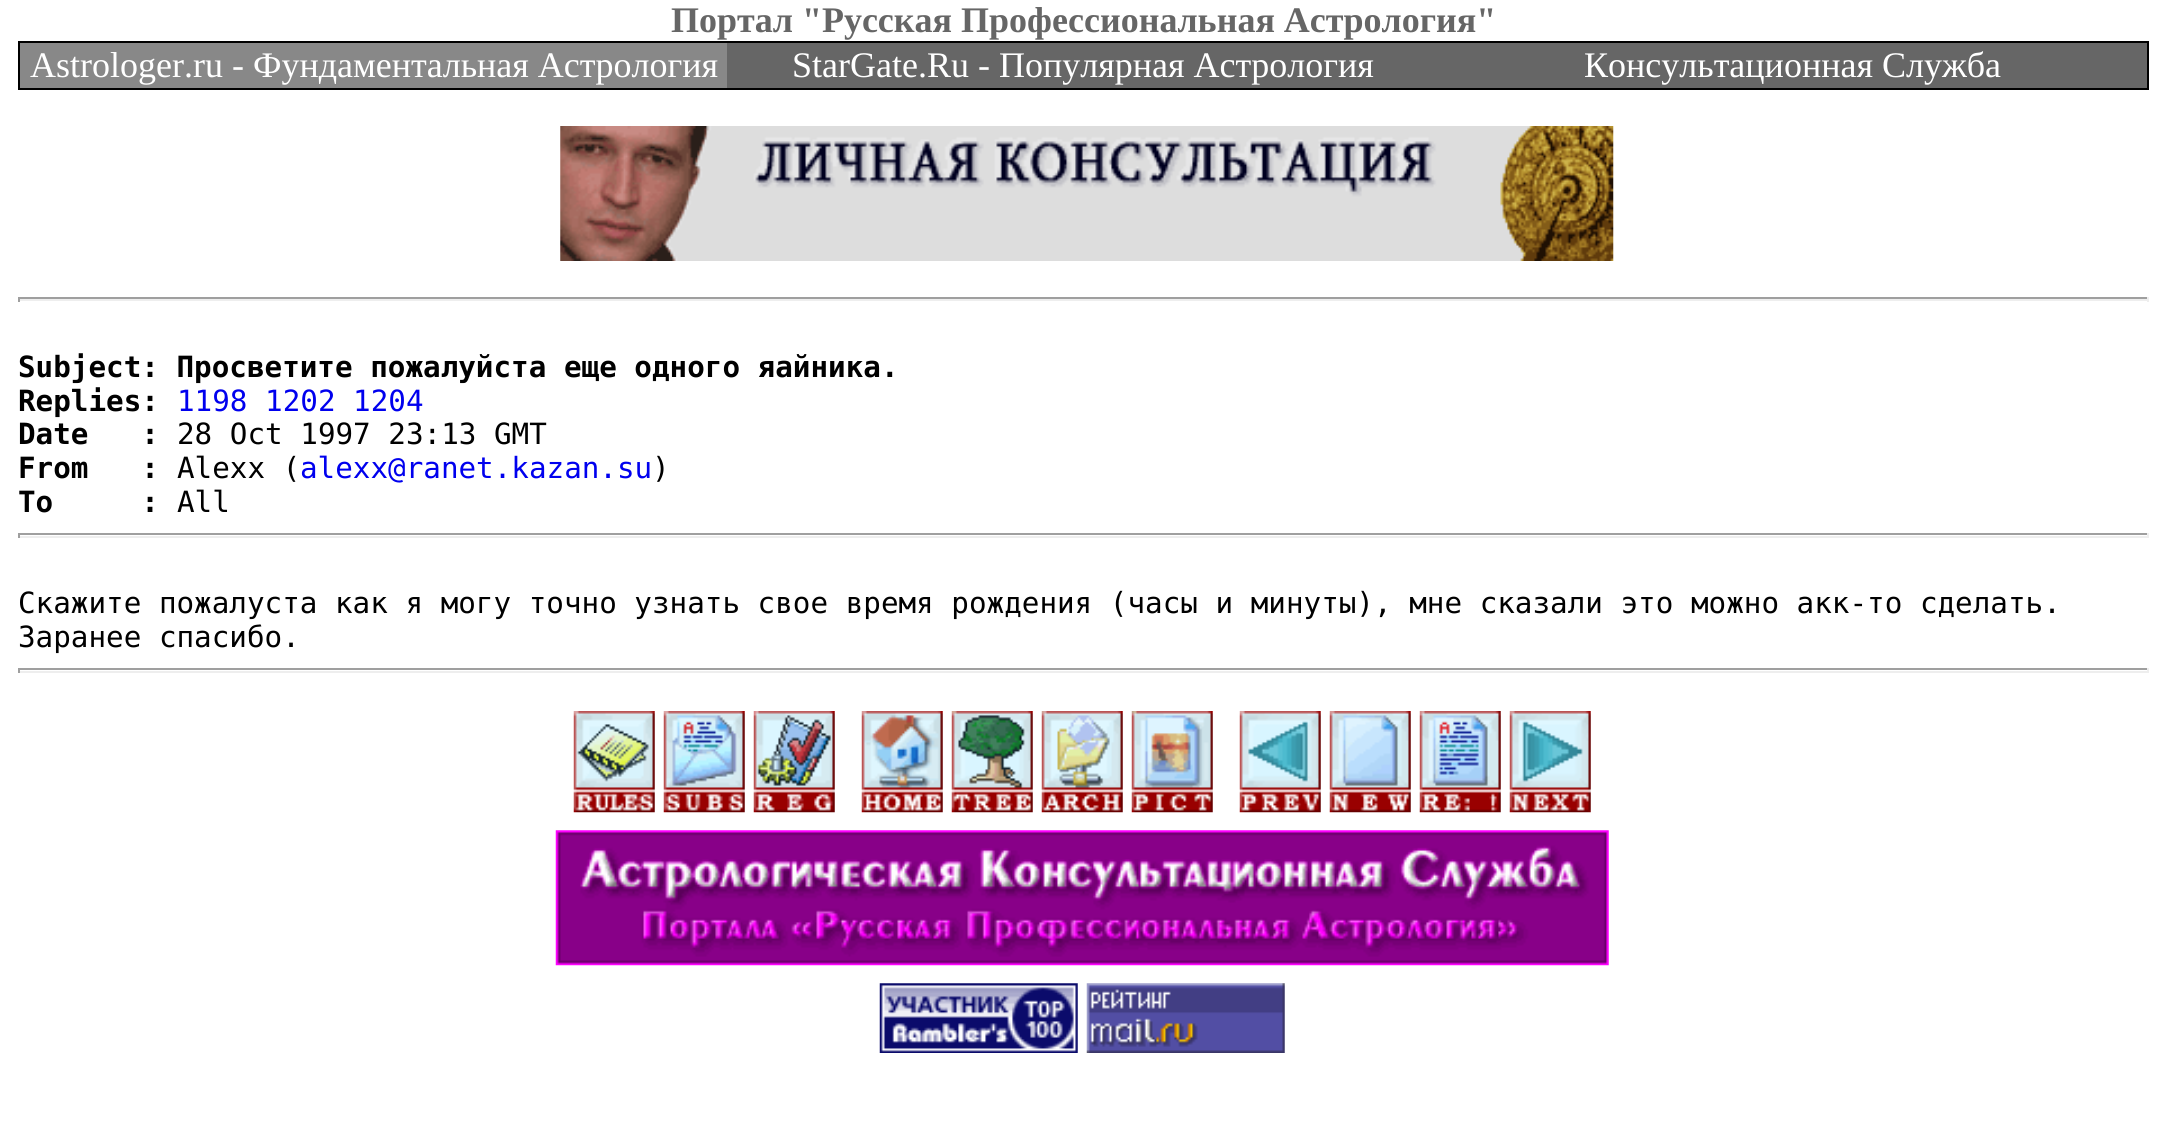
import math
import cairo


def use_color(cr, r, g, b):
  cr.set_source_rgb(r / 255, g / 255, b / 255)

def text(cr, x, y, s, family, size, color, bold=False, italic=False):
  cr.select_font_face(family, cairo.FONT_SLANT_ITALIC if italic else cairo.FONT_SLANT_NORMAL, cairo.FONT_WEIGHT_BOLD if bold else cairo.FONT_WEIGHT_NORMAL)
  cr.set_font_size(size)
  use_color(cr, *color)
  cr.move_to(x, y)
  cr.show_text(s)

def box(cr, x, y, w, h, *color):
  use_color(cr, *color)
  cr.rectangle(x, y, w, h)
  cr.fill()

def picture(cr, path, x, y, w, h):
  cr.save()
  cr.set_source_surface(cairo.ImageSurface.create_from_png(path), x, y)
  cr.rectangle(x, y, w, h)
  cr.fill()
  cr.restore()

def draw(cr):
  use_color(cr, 255, 255, 255)
  cr.paint()
  box(cr, 18, 41, 2131, 49, 0, 0, 0)
  box(cr, 727, 43, 1420, 45, 102, 102, 102)
  box(cr, 20, 43, 707, 45, 136, 136, 136)
  picture(cr, "img_01.png", 560, 126, 1054, 135)
  box(cr, 18, 297, 2131, 2, 159, 159, 159)
  box(cr, 2147, 297, 2, 5, 238, 238, 238)
  box(cr, 18, 299, 2131, 2, 238, 238, 238)
  box(cr, 18, 297, 2, 5, 159, 159, 159)
  box(cr, 18, 533, 2131, 2, 159, 159, 159)
  box(cr, 2147, 533, 2, 5, 238, 238, 238)
  box(cr, 18, 536, 2131, 2, 238, 238, 238)
  box(cr, 18, 533, 2, 5, 159, 159, 159)
  box(cr, 18, 668, 2131, 2, 159, 159, 159)
  box(cr, 2147, 668, 2, 5, 238, 238, 238)
  box(cr, 18, 671, 2131, 2, 238, 238, 238)
  box(cr, 18, 668, 2, 5, 159, 159, 159)
  picture(cr, "img_02.png", 573, 711, 82, 102)
  picture(cr, "img_03.png", 663, 711, 82, 102)
  picture(cr, "img_04.png", 753, 711, 82, 102)
  picture(cr, "img_05.png", 861, 711, 82, 102)
  picture(cr, "img_06.png", 951, 711, 82, 102)
  picture(cr, "img_07.png", 1041, 711, 82, 102)
  picture(cr, "img_08.png", 1131, 711, 82, 102)
  picture(cr, "img_09.png", 1239, 711, 82, 102)
  picture(cr, "img_10.png", 1329, 711, 82, 102)
  picture(cr, "img_11.png", 1419, 711, 82, 102)
  picture(cr, "img_12.png", 1509, 711, 82, 102)
  picture(cr, "img_13.png", 555, 830, 1054, 136)
  picture(cr, "img_14.png", 879, 983, 199, 70)
  picture(cr, "img_15.png", 1086, 983, 199, 70)
  text(cr, 671, 32, "Портал \"Русская Профессиональная Астрология\"", "Liberation Serif", 36, (102, 102, 102), bold=True)
  text(cr, 30, 77, "Astrologer.ru - Фундаментальная Астрология", "Liberation Serif", 36, (255, 255, 255))
  text(cr, 792, 77, "StarGate.Ru - Популярная Астрология", "Liberation Serif", 36, (255, 255, 255))
  text(cr, 1584, 77, "Консультационная Служба", "Liberation Serif", 36, (255, 255, 255))
  text(cr, 18, 377, "Subject: Просветите пожалуйста еще одного яайника.", "DejaVu Sans Mono", 29.25, (0, 0, 0), bold=True)
  text(cr, 18, 411, "Replies:", "DejaVu Sans Mono", 29.25, (0, 0, 0), bold=True)
  text(cr, 177, 411, "1198 1202 1204", "DejaVu Sans Mono", 29.25, (0, 0, 238))
  text(cr, 18, 444, "Date   :", "DejaVu Sans Mono", 29.25, (0, 0, 0), bold=True)
  text(cr, 177, 444, "28 Oct 1997 23:13 GMT", "DejaVu Sans Mono", 29.25, (0, 0, 0))
  text(cr, 18, 478, "From   :", "DejaVu Sans Mono", 29.25, (0, 0, 0), bold=True)
  text(cr, 177, 478, "Alexx (", "DejaVu Sans Mono", 29.25, (0, 0, 0))
  text(cr, 300, 478, "alexx@ranet.kazan.su", "DejaVu Sans Mono", 29.25, (0, 0, 238))
  text(cr, 652, 478, ")", "DejaVu Sans Mono", 29.25, (0, 0, 0))
  text(cr, 18, 512, "To     :", "DejaVu Sans Mono", 29.25, (0, 0, 0), bold=True)
  text(cr, 177, 512, "All", "DejaVu Sans Mono", 29.25, (0, 0, 0))
  text(cr, 18, 613, "Скажите пожалуста как я могу точно узнать свое время рождения (часы и минуты), мне сказали это можно акк-то сделать.", "DejaVu Sans Mono", 29.25, (0, 0, 0))
  text(cr, 18, 647, "Заранее спасибо.", "DejaVu Sans Mono", 29.25, (0, 0, 0))


surface = cairo.ImageSurface(cairo.FORMAT_RGB24, 2165, 1125)
cr = cairo.Context(surface)
options = cairo.FontOptions()
options.set_hint_metrics(cairo.HINT_METRICS_OFF)
options.set_hint_style(cairo.HINT_STYLE_NONE)
cr.set_font_options(options)
cr.set_miter_limit(4)
draw(cr)
surface.write_to_png("out.png")
